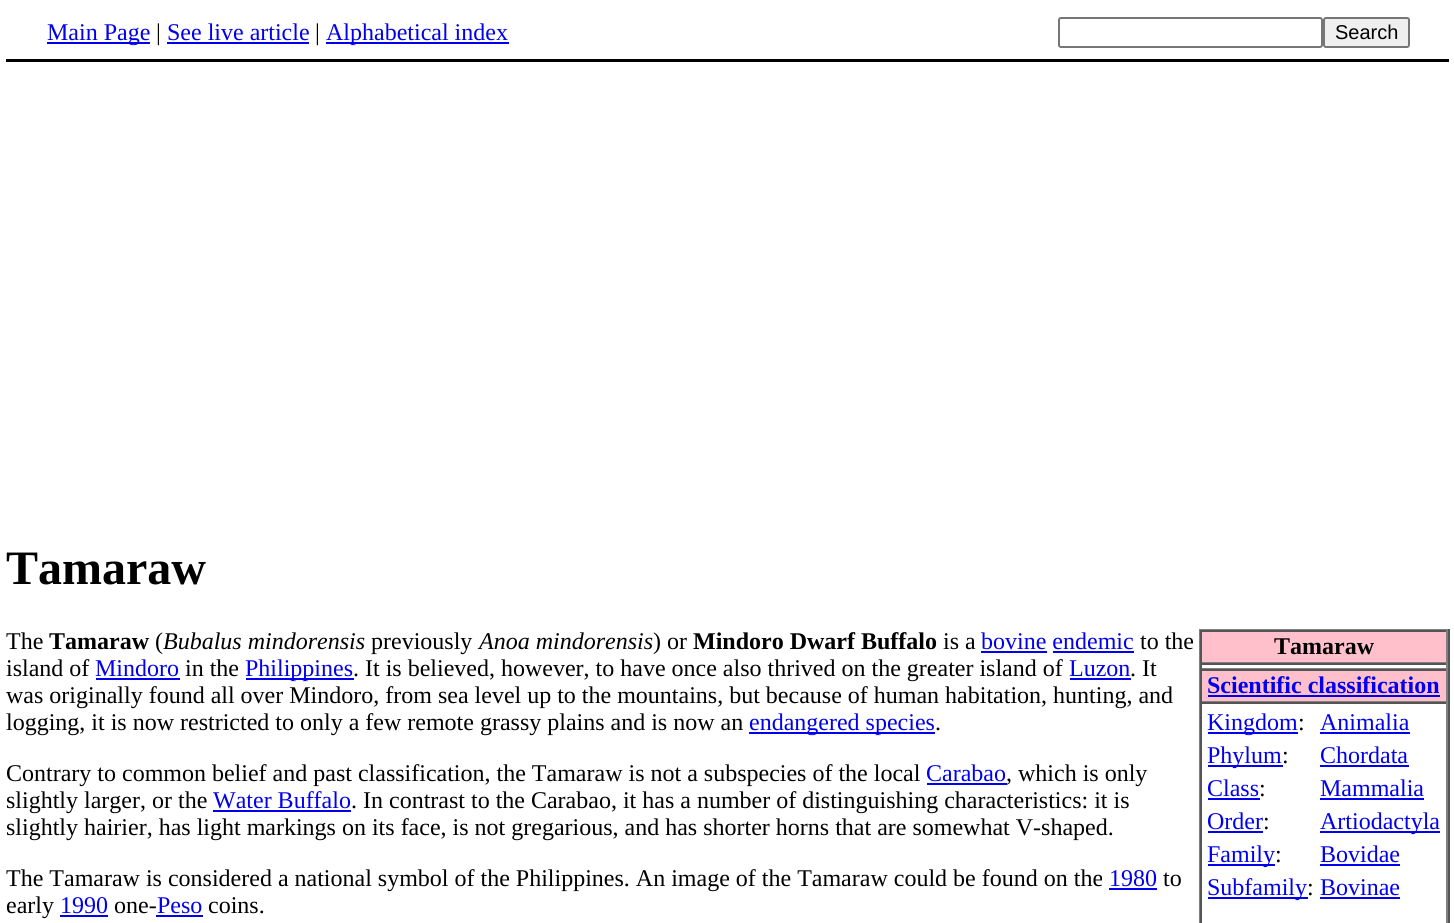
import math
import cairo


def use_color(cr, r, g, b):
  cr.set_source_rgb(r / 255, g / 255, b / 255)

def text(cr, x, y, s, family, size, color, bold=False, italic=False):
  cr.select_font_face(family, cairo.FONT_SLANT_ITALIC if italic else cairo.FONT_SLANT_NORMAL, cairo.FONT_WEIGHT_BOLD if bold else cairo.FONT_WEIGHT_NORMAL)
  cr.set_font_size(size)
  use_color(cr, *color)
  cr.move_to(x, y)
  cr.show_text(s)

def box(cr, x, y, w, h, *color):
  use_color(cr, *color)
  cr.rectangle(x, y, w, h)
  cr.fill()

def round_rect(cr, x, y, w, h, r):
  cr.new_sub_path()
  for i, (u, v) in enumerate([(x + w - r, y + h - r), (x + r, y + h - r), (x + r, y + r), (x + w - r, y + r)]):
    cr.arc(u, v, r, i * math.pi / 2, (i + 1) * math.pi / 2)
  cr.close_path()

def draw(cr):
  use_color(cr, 255, 255, 255)
  cr.paint()
  box(cr, 6, 59, 1443, 3, 0, 0, 0)
  box(cr, 47, 42, 103, 2, 0, 0, 238)
  box(cr, 167, 42, 142, 2, 0, 0, 238)
  box(cr, 326, 42, 183, 2, 0, 0, 238)
  round_rect(cr, 1059, 18, 263, 29, 2)
  use_color(cr, 118, 118, 118)
  cr.stroke()
  use_color(cr, 239, 239, 239)
  round_rect(cr, 1324, 18, 85, 29, 2)
  cr.fill_preserve()
  use_color(cr, 118, 118, 118)
  cr.stroke()
  box(cr, 981, 651, 66, 2, 0, 0, 238)
  box(cr, 1053, 651, 81, 2, 0, 0, 238)
  box(cr, 96, 678, 84, 2, 0, 0, 238)
  box(cr, 246, 678, 108, 2, 0, 0, 238)
  box(cr, 1070, 678, 61, 2, 0, 0, 238)
  box(cr, 749, 732, 186, 2, 0, 0, 238)
  box(cr, 1199, 629, 250, 1, 128, 128, 128)
  box(cr, 1448, 629, 2, 294, 85, 85, 85)
  box(cr, 1199, 629, 2, 294, 128, 128, 128)
  box(cr, 1202, 632, 244, 30, 255, 192, 203)
  box(cr, 1200, 630, 248, 2, 85, 85, 85)
  box(cr, 1446, 630, 2, 33, 128, 128, 128)
  box(cr, 1200, 662, 248, 1, 128, 128, 128)
  box(cr, 1200, 630, 2, 33, 85, 85, 85)
  box(cr, 1200, 663, 248, 2, 85, 85, 85)
  box(cr, 1446, 663, 2, 6, 128, 128, 128)
  box(cr, 1200, 668, 248, 1, 128, 128, 128)
  box(cr, 1200, 663, 2, 6, 85, 85, 85)
  box(cr, 1202, 671, 244, 30, 255, 192, 203)
  box(cr, 1200, 669, 248, 2, 85, 85, 85)
  box(cr, 1446, 669, 2, 33, 128, 128, 128)
  box(cr, 1200, 701, 248, 1, 128, 128, 128)
  box(cr, 1200, 669, 2, 33, 85, 85, 85)
  box(cr, 1208, 695, 232, 2, 0, 0, 238)
  box(cr, 1200, 702, 248, 2, 85, 85, 85)
  box(cr, 1446, 702, 2, 221, 128, 128, 128)
  box(cr, 1200, 702, 2, 221, 85, 85, 85)
  box(cr, 1208, 732, 90, 2, 0, 0, 238)
  box(cr, 1320, 732, 90, 2, 0, 0, 238)
  box(cr, 1208, 765, 75, 2, 0, 0, 238)
  box(cr, 1320, 765, 89, 2, 0, 0, 238)
  box(cr, 1208, 798, 52, 2, 0, 0, 238)
  box(cr, 1320, 798, 104, 2, 0, 0, 238)
  box(cr, 1208, 831, 55, 2, 0, 0, 238)
  box(cr, 1320, 831, 120, 2, 0, 0, 238)
  box(cr, 1208, 864, 67, 2, 0, 0, 238)
  box(cr, 1320, 864, 80, 2, 0, 0, 238)
  box(cr, 1208, 897, 100, 2, 0, 0, 238)
  box(cr, 1320, 897, 80, 2, 0, 0, 238)
  box(cr, 927, 783, 80, 2, 0, 0, 238)
  box(cr, 213, 810, 138, 2, 0, 0, 238)
  box(cr, 1109, 888, 48, 2, 0, 0, 238)
  box(cr, 60, 915, 48, 2, 0, 0, 238)
  box(cr, 156, 915, 47, 2, 0, 0, 238)
  text(cr, 47, 40, "Main Page", "Liberation Serif", 24, (0, 0, 238))
  text(cr, 156, 40, "|", "Liberation Serif", 24, (0, 0, 0))
  text(cr, 167, 40, "See live article", "Liberation Serif", 24, (0, 0, 238))
  text(cr, 315, 40, "|", "Liberation Serif", 24, (0, 0, 0))
  text(cr, 326, 40, "Alphabetical index", "Liberation Serif", 24, (0, 0, 238))
  text(cr, 1335, 39, "Search", "Liberation Sans", 20, (0, 0, 0))
  text(cr, 6, 584, "Tamaraw", "Liberation Serif", 48, (0, 0, 0), bold=True)
  text(cr, 6, 649, "The", "Liberation Serif", 24, (0, 0, 0))
  text(cr, 49, 649, "Tamaraw", "Liberation Serif", 24, (0, 0, 0), bold=True)
  text(cr, 155, 649, "(", "Liberation Serif", 24, (0, 0, 0))
  text(cr, 163, 649, "Bubalus mindorensis", "Liberation Serif", 24, (0, 0, 0), italic=True)
  text(cr, 371, 649, "previously", "Liberation Serif", 24, (0, 0, 0))
  text(cr, 479, 649, "Anoa mindorensis", "Liberation Serif", 24, (0, 0, 0), italic=True)
  text(cr, 653, 649, ") or", "Liberation Serif", 24, (0, 0, 0))
  text(cr, 693, 649, "Mindoro Dwarf Buffalo", "Liberation Serif", 24, (0, 0, 0), bold=True)
  text(cr, 943, 649, "is a", "Liberation Serif", 24, (0, 0, 0))
  text(cr, 981, 649, "bovine endemic", "Liberation Serif", 24, (0, 0, 238))
  text(cr, 1140, 649, "to the", "Liberation Serif", 24, (0, 0, 0))
  text(cr, 6, 676, "island of", "Liberation Serif", 24, (0, 0, 0))
  text(cr, 95, 676, "Mindoro", "Liberation Serif", 24, (0, 0, 238))
  text(cr, 185, 676, "in the", "Liberation Serif", 24, (0, 0, 0))
  text(cr, 245, 676, "Philippines", "Liberation Serif", 24, (0, 0, 238))
  text(cr, 353, 676, ". It is believed, however, to have once also thrived on the greater island of", "Liberation Serif", 24, (0, 0, 0))
  text(cr, 1069, 676, "Luzon", "Liberation Serif", 24, (0, 0, 238))
  text(cr, 1130, 676, ". It", "Liberation Serif", 24, (0, 0, 0))
  text(cr, 6, 703, "was originally found all over Mindoro, from sea level up to the mountains, but because of human habitation, hunting, and", "Liberation Serif", 24, (0, 0, 0))
  text(cr, 6, 730, "logging, it is now restricted to only a few remote grassy plains and is now an", "Liberation Serif", 24, (0, 0, 0))
  text(cr, 749, 730, "endangered species", "Liberation Serif", 24, (0, 0, 238))
  text(cr, 935, 730, ".", "Liberation Serif", 24, (0, 0, 0))
  text(cr, 1274, 654, "Tamaraw", "Liberation Serif", 24, (0, 0, 0), bold=True)
  text(cr, 1207, 693, "Scientific classification", "Liberation Serif", 24, (0, 0, 238), bold=True)
  text(cr, 1207, 730, "Kingdom", "Liberation Serif", 24, (0, 0, 238))
  text(cr, 1298, 730, ":", "Liberation Serif", 24, (0, 0, 0))
  text(cr, 1320, 730, "Animalia", "Liberation Serif", 24, (0, 0, 238))
  text(cr, 1207, 763, "Phylum", "Liberation Serif", 24, (0, 0, 238))
  text(cr, 1282, 763, ":", "Liberation Serif", 24, (0, 0, 0))
  text(cr, 1320, 763, "Chordata", "Liberation Serif", 24, (0, 0, 238))
  text(cr, 1207, 796, "Class", "Liberation Serif", 24, (0, 0, 238))
  text(cr, 1259, 796, ":", "Liberation Serif", 24, (0, 0, 0))
  text(cr, 1320, 796, "Mammalia", "Liberation Serif", 24, (0, 0, 238))
  text(cr, 1207, 829, "Order", "Liberation Serif", 24, (0, 0, 238))
  text(cr, 1263, 829, ":", "Liberation Serif", 24, (0, 0, 0))
  text(cr, 1320, 829, "Artiodactyla", "Liberation Serif", 24, (0, 0, 238))
  text(cr, 1207, 862, "Family", "Liberation Serif", 24, (0, 0, 238))
  text(cr, 1275, 862, ":", "Liberation Serif", 24, (0, 0, 0))
  text(cr, 1320, 862, "Bovidae", "Liberation Serif", 24, (0, 0, 238))
  text(cr, 1207, 895, "Subfamily", "Liberation Serif", 24, (0, 0, 238))
  text(cr, 1307, 895, ":", "Liberation Serif", 24, (0, 0, 0))
  text(cr, 1320, 895, "Bovinae", "Liberation Serif", 24, (0, 0, 238))
  text(cr, 6, 781, "Contrary to common belief and past classification, the Tamaraw is not a subspecies of the local", "Liberation Serif", 24, (0, 0, 0))
  text(cr, 926, 781, "Carabao", "Liberation Serif", 24, (0, 0, 238))
  text(cr, 1006, 781, ", which is only", "Liberation Serif", 24, (0, 0, 0))
  text(cr, 6, 808, "slightly larger, or the", "Liberation Serif", 24, (0, 0, 0))
  text(cr, 213, 808, "Water Buffalo", "Liberation Serif", 24, (0, 0, 238))
  text(cr, 351, 808, ". In contrast to the Carabao, it has a number of distinguishing characteristics: it is", "Liberation Serif", 24, (0, 0, 0))
  text(cr, 6, 835, "slightly hairier, has light markings on its face, is not gregarious, and has shorter horns that are somewhat V-shaped.", "Liberation Serif", 24, (0, 0, 0))
  text(cr, 6, 886, "The Tamaraw is considered a national symbol of the Philippines. An image of the Tamaraw could be found on the", "Liberation Serif", 24, (0, 0, 0))
  text(cr, 1109, 886, "1980", "Liberation Serif", 24, (0, 0, 238))
  text(cr, 1163, 886, "to", "Liberation Serif", 24, (0, 0, 0))
  text(cr, 6, 913, "early", "Liberation Serif", 24, (0, 0, 0))
  text(cr, 60, 913, "1990", "Liberation Serif", 24, (0, 0, 238))
  text(cr, 114, 913, "one-", "Liberation Serif", 24, (0, 0, 0))
  text(cr, 157, 913, "Peso", "Liberation Serif", 24, (0, 0, 238))
  text(cr, 208, 913, "coins.", "Liberation Serif", 24, (0, 0, 0))


surface = cairo.ImageSurface(cairo.FORMAT_RGB24, 1454, 923)
cr = cairo.Context(surface)
options = cairo.FontOptions()
options.set_hint_metrics(cairo.HINT_METRICS_OFF)
options.set_hint_style(cairo.HINT_STYLE_NONE)
cr.set_font_options(options)
cr.set_miter_limit(4)
draw(cr)
surface.write_to_png("out.png")
